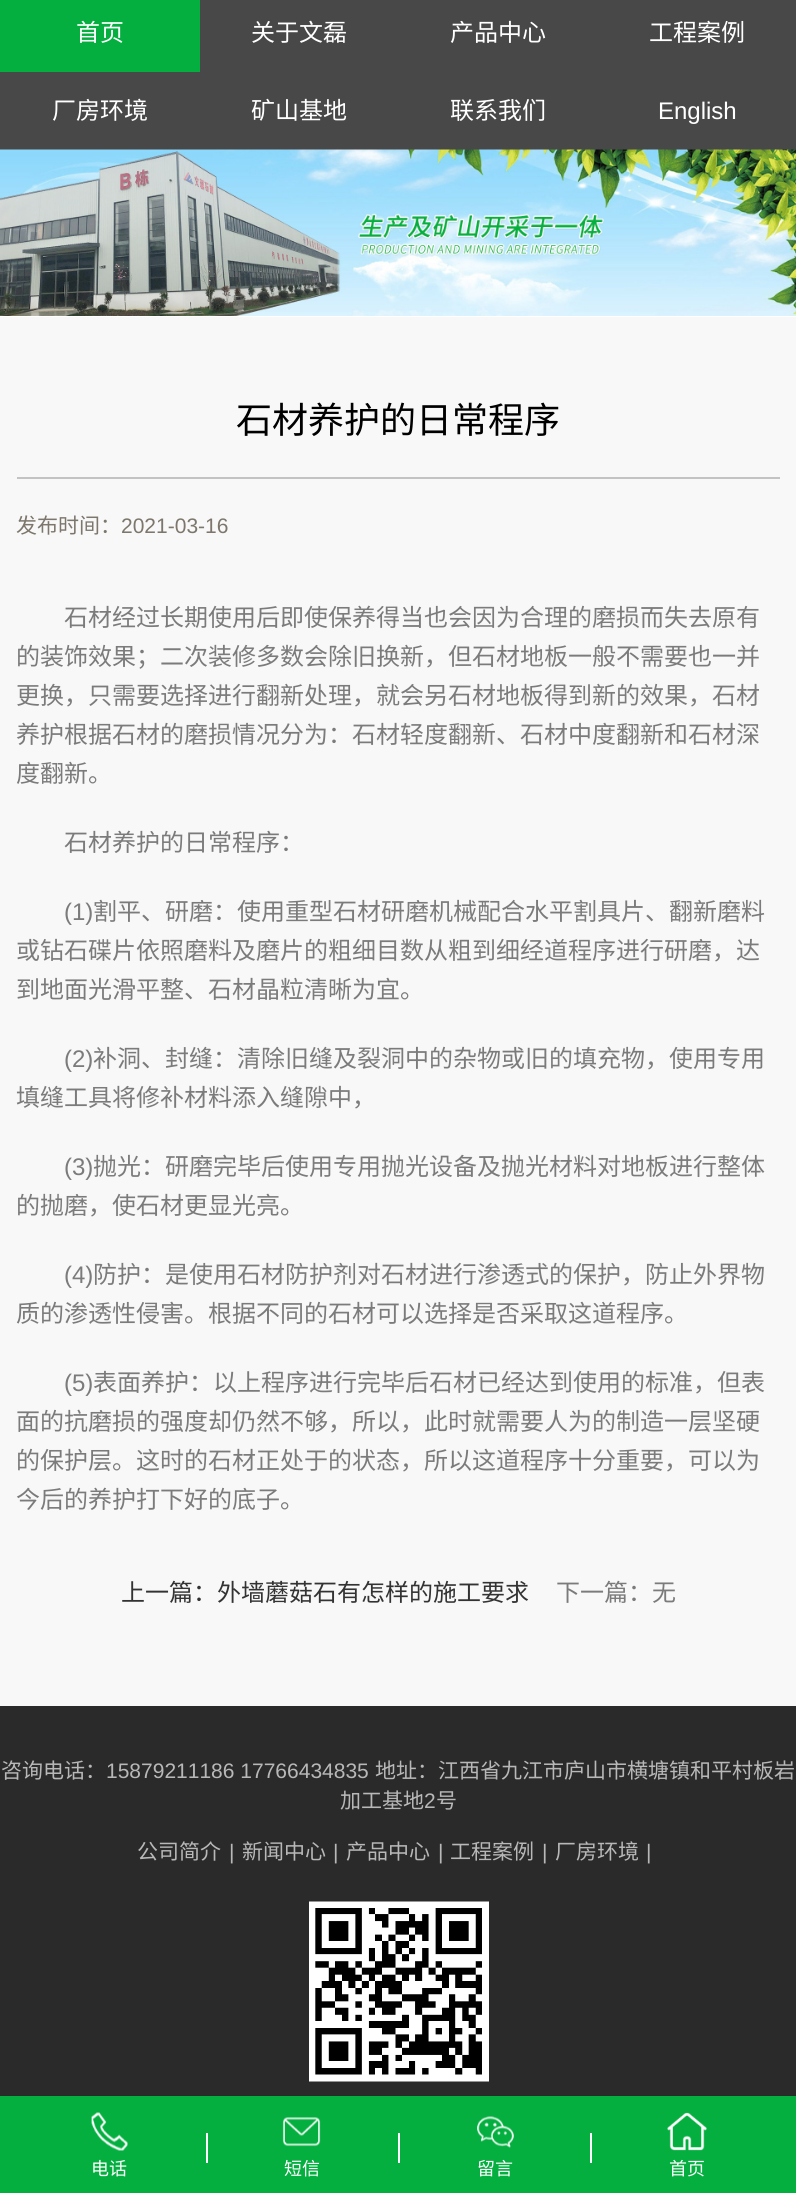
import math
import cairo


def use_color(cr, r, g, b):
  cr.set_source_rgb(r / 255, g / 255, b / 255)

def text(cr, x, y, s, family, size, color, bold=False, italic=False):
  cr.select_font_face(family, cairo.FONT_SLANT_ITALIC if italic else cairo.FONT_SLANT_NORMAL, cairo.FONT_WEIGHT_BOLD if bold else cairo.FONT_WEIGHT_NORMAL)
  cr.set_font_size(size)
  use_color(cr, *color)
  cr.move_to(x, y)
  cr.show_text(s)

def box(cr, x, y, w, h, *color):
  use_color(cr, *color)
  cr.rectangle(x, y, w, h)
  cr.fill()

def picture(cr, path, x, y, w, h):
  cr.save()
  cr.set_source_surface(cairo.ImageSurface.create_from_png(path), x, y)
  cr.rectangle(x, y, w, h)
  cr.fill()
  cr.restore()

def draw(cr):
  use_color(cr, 255, 255, 255)
  cr.paint()
  box(cr, 0, 0, 796, 150, 72, 72, 72)
  box(cr, 0, 0, 200, 72, 4, 175, 64)
  picture(cr, "img_01.png", 0, 149, 796, 167)
  box(cr, 0, 317, 796, 1389, 248, 248, 248)
  box(cr, 17, 477, 763, 2, 195, 195, 195)
  box(cr, 0, 1706, 796, 390, 42, 42, 42)
  picture(cr, "img_02.png", 309, 1901, 180, 181)
  box(cr, 0, 2096, 796, 97, 4, 175, 64)
  box(cr, 206, 2133, 2, 30, 255, 255, 255)
  box(cr, 398, 2133, 2, 30, 255, 255, 255)
  box(cr, 590, 2133, 2, 30, 255, 255, 255)
  picture(cr, "img_03.png", 91, 2112, 37, 39)
  picture(cr, "img_04.png", 282, 2117, 39, 30)
  picture(cr, "img_05.png", 477, 2116, 37, 32)
  picture(cr, "img_06.png", 667, 2112, 40, 39)
  text(cr, 76, 41, "首页", "Noto Sans CJK SC", 24, (255, 255, 255))
  text(cr, 251, 41, "关于文磊", "Noto Sans CJK SC", 24, (255, 255, 255))
  text(cr, 450, 41, "产品中心", "Noto Sans CJK SC", 24, (255, 255, 255))
  text(cr, 649, 41, "工程案例", "Noto Sans CJK SC", 24, (255, 255, 255))
  text(cr, 52, 119, "厂房环境", "Noto Sans CJK SC", 24, (255, 255, 255))
  text(cr, 251, 119, "矿山基地", "Noto Sans CJK SC", 24, (255, 255, 255))
  text(cr, 450, 119, "联系我们", "Noto Sans CJK SC", 24, (255, 255, 255))
  text(cr, 658, 119, "English", "Liberation Sans", 24, (255, 255, 255))
  text(cr, 236, 433, "石材养护的日常程序", "Noto Sans CJK SC", 36, (0, 0, 0))
  text(cr, 16, 533, "发布时间：", "Noto Sans CJK SC", 21, (125, 118, 108))
  text(cr, 121, 533, "2021-03-16", "Liberation Sans", 21, (125, 118, 108))
  text(cr, 64, 626, "石材经过长期使用后即使保养得当也会因为合理的磨损而失去原有", "Noto Sans CJK SC", 24, (123, 123, 123))
  text(cr, 16, 665, "的装饰效果；二次装修多数会除旧换新，但石材地板一般不需要也一并", "Noto Sans CJK SC", 24, (123, 123, 123))
  text(cr, 16, 704, "更换，只需要选择进行翻新处理，就会另石材地板得到新的效果，石材", "Noto Sans CJK SC", 24, (123, 123, 123))
  text(cr, 16, 743, "养护根据石材的磨损情况分为：石材轻度翻新、石材中度翻新和石材深", "Noto Sans CJK SC", 24, (123, 123, 123))
  text(cr, 16, 782, "度翻新。", "Noto Sans CJK SC", 24, (123, 123, 123))
  text(cr, 64, 851, "石材养护的日常程序：", "Noto Sans CJK SC", 24, (123, 123, 123))
  text(cr, 64, 920, "(1)", "Liberation Sans", 24, (123, 123, 123))
  text(cr, 93, 920, "割平、研磨：使用重型石材研磨机械配合水平割具片、翻新磨料", "Noto Sans CJK SC", 24, (123, 123, 123))
  text(cr, 16, 959, "或钻石碟片依照磨料及磨片的粗细目数从粗到细经道程序进行研磨，达", "Noto Sans CJK SC", 24, (123, 123, 123))
  text(cr, 16, 998, "到地面光滑平整、石材晶粒清晰为宜。", "Noto Sans CJK SC", 24, (123, 123, 123))
  text(cr, 64, 1067, "(2)", "Liberation Sans", 24, (123, 123, 123))
  text(cr, 93, 1067, "补洞、封缝：清除旧缝及裂洞中的杂物或旧的填充物，使用专用", "Noto Sans CJK SC", 24, (123, 123, 123))
  text(cr, 16, 1106, "填缝工具将修补材料添入缝隙中，", "Noto Sans CJK SC", 24, (123, 123, 123))
  text(cr, 64, 1175, "(3)", "Liberation Sans", 24, (123, 123, 123))
  text(cr, 93, 1175, "抛光：研磨完毕后使用专用抛光设备及抛光材料对地板进行整体", "Noto Sans CJK SC", 24, (123, 123, 123))
  text(cr, 16, 1214, "的抛磨，使石材更显光亮。", "Noto Sans CJK SC", 24, (123, 123, 123))
  text(cr, 64, 1283, "(4)", "Liberation Sans", 24, (123, 123, 123))
  text(cr, 93, 1283, "防护：是使用石材防护剂对石材进行渗透式的保护，防止外界物", "Noto Sans CJK SC", 24, (123, 123, 123))
  text(cr, 16, 1322, "质的渗透性侵害。根据不同的石材可以选择是否采取这道程序。", "Noto Sans CJK SC", 24, (123, 123, 123))
  text(cr, 64, 1391, "(5)", "Liberation Sans", 24, (123, 123, 123))
  text(cr, 93, 1391, "表面养护：以上程序进行完毕后石材已经达到使用的标准，但表", "Noto Sans CJK SC", 24, (123, 123, 123))
  text(cr, 16, 1430, "面的抗磨损的强度却仍然不够，所以，此时就需要人为的制造一层坚硬", "Noto Sans CJK SC", 24, (123, 123, 123))
  text(cr, 16, 1469, "的保护层。这时的石材正处于的状态，所以这道程序十分重要，可以为", "Noto Sans CJK SC", 24, (123, 123, 123))
  text(cr, 16, 1508, "今后的养护打下好的底子。", "Noto Sans CJK SC", 24, (123, 123, 123))
  text(cr, 121, 1601, "上一篇：外墙蘑菇石有怎样的施工要求", "Noto Sans CJK SC", 24, (51, 51, 51))
  text(cr, 556, 1601, "下一篇：无", "Noto Sans CJK SC", 24, (123, 123, 123))
  text(cr, 1, 1778, "咨询电话：", "Noto Sans CJK SC", 21, (184, 184, 184))
  text(cr, 106, 1778, "15879211186 17766434835", "Liberation Sans", 21, (184, 184, 184))
  text(cr, 375, 1778, "地址：江西省九江市庐山市横塘镇和平村板岩", "Noto Sans CJK SC", 21, (184, 184, 184))
  text(cr, 340, 1808, "加工基地", "Noto Sans CJK SC", 21, (184, 184, 184))
  text(cr, 424, 1808, "2", "Liberation Sans", 21, (184, 184, 184))
  text(cr, 436, 1808, "号", "Noto Sans CJK SC", 21, (184, 184, 184))
  text(cr, 137, 1859, "公司简介", "Noto Sans CJK SC", 21, (184, 184, 184))
  text(cr, 229, 1859, "|", "Liberation Sans", 21, (184, 184, 184))
  text(cr, 242, 1859, "新闻中心", "Noto Sans CJK SC", 21, (184, 184, 184))
  text(cr, 333, 1859, "|", "Liberation Sans", 21, (184, 184, 184))
  text(cr, 346, 1859, "产品中心", "Noto Sans CJK SC", 21, (184, 184, 184))
  text(cr, 438, 1859, "|", "Liberation Sans", 21, (184, 184, 184))
  text(cr, 450, 1859, "工程案例", "Noto Sans CJK SC", 21, (184, 184, 184))
  text(cr, 542, 1859, "|", "Liberation Sans", 21, (184, 184, 184))
  text(cr, 555, 1859, "厂房环境", "Noto Sans CJK SC", 21, (184, 184, 184))
  text(cr, 646, 1859, "|", "Liberation Sans", 21, (184, 184, 184))
  text(cr, 91, 2175, "电话", "Noto Sans CJK SC", 18, (255, 255, 255))
  text(cr, 284, 2175, "短信", "Noto Sans CJK SC", 18, (255, 255, 255))
  text(cr, 477, 2175, "留言", "Noto Sans CJK SC", 18, (255, 255, 255))
  text(cr, 669, 2175, "首页", "Noto Sans CJK SC", 18, (255, 255, 255))


surface = cairo.ImageSurface(cairo.FORMAT_RGB24, 796, 2193)
cr = cairo.Context(surface)
options = cairo.FontOptions()
options.set_hint_metrics(cairo.HINT_METRICS_OFF)
options.set_hint_style(cairo.HINT_STYLE_NONE)
cr.set_font_options(options)
cr.set_miter_limit(4)
draw(cr)
surface.write_to_png("out.png")
